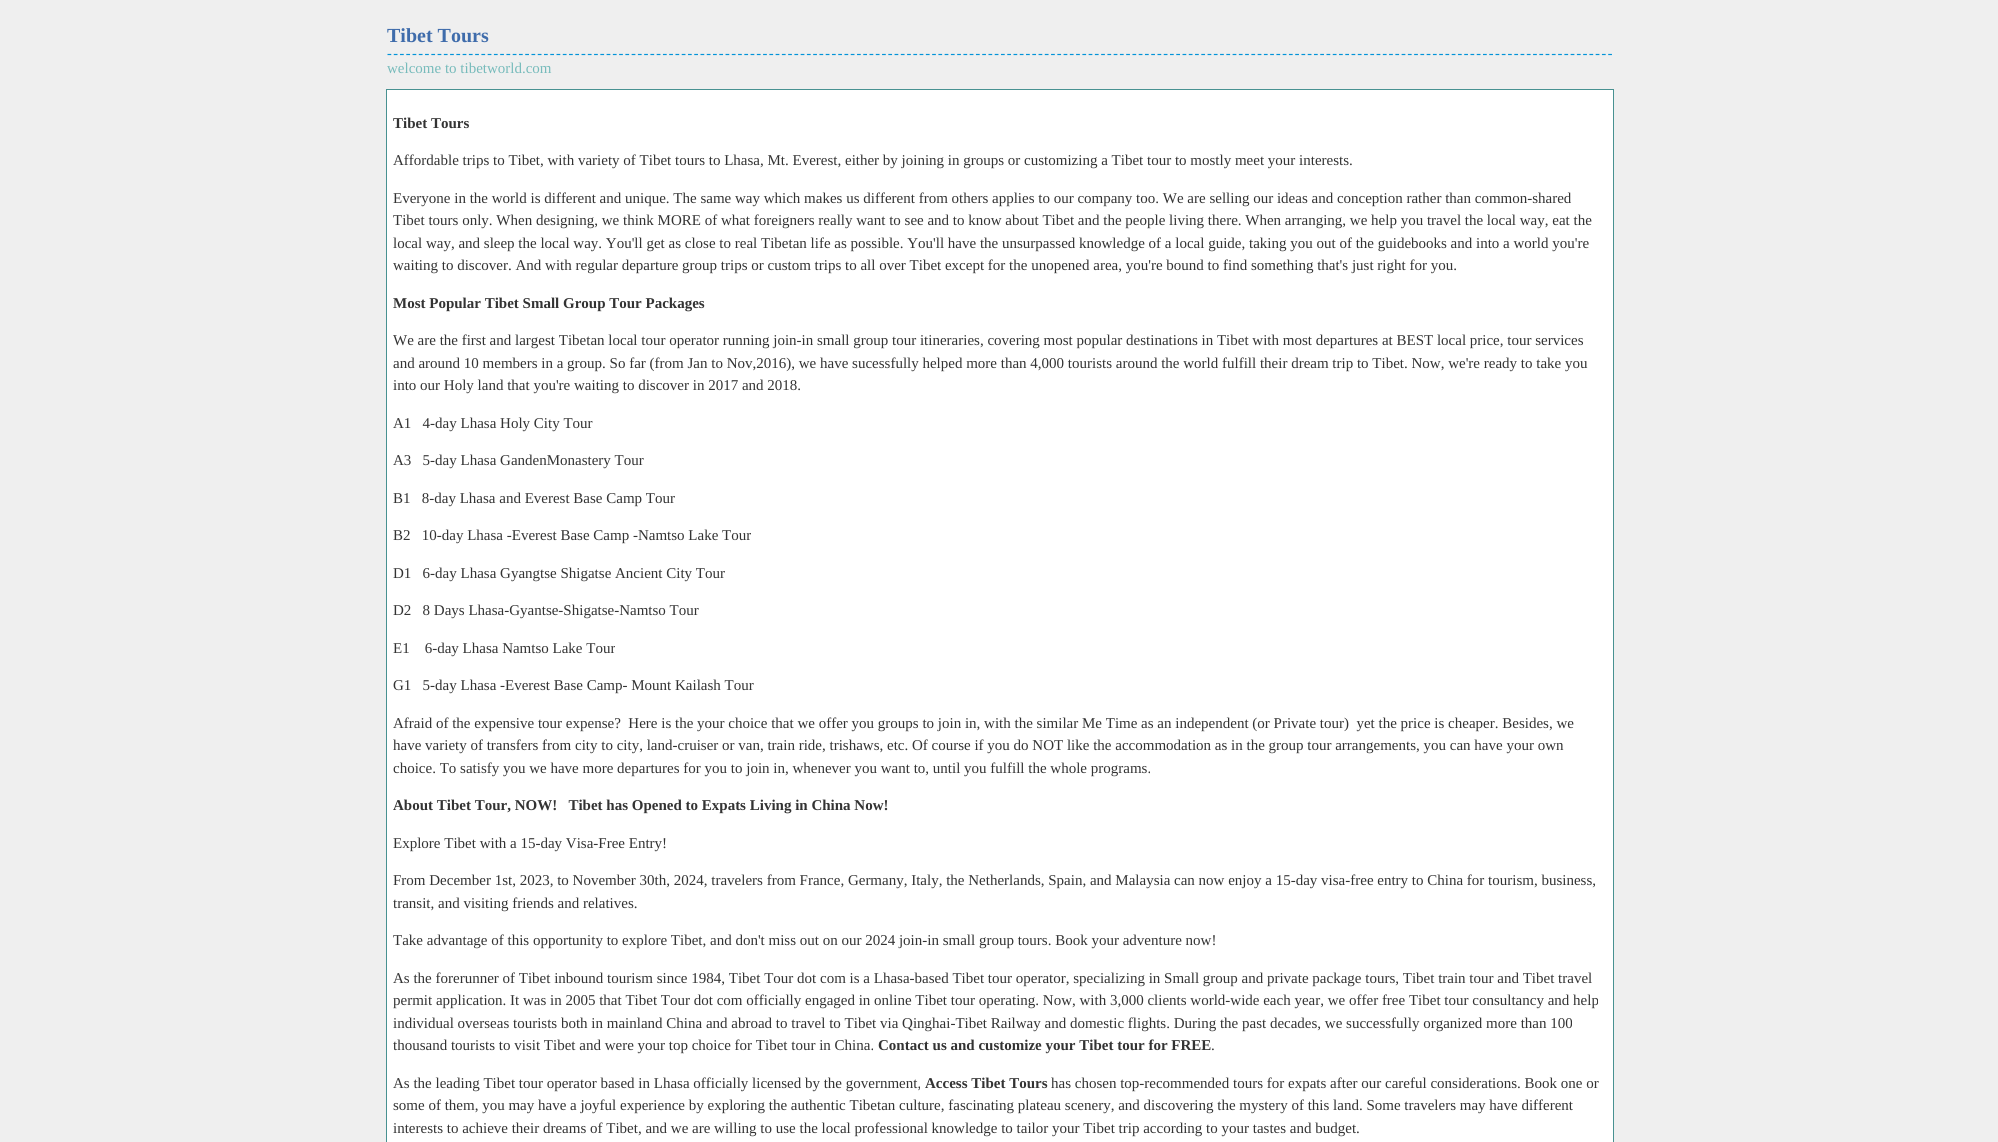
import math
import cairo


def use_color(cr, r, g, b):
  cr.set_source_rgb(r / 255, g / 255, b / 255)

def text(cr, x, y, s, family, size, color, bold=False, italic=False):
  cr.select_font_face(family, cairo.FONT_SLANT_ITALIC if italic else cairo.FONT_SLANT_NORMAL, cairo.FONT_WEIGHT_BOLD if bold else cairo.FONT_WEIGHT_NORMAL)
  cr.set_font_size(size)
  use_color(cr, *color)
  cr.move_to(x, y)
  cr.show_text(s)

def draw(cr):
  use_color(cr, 239, 239, 239)
  cr.paint()
  cr.new_path()
  cr.move_to(387.5, 54.5)
  cr.line_to(1612.5, 54.5)
  use_color(cr, 3, 147, 216)
  cr.set_line_width(1.2)
  cr.set_dash([3.75, 2.51])
  cr.stroke()
  use_color(cr, 255, 255, 255)
  cr.rectangle(386.5, 89.5, 1227, 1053)
  cr.fill_preserve()
  use_color(cr, 72, 145, 145)
  cr.set_line_width(1)
  cr.set_dash([])
  cr.stroke()
  text(cr, 387, 42, "Tibet Tours", "Liberation Serif", 20, (63, 108, 171), bold=True)
  text(cr, 387, 73, "welcome to tibetworld.com", "Liberation Serif", 15, (119, 187, 187))
  text(cr, 393, 128, "Tibet Tours", "Liberation Serif", 15, (51, 51, 51), bold=True)
  text(cr, 393, 165, "Affordable trips to Tibet, with variety of Tibet tours to Lhasa, Mt. Everest, either by joining in groups or customizing a Tibet tour to mostly meet your interests.", "Liberation Serif", 15, (51, 51, 51))
  text(cr, 393, 203, "Everyone in the world is different and unique. The same way which makes us different from others applies to our company too. We are selling our ideas and conception rather than common-shared", "Liberation Serif", 15, (51, 51, 51))
  text(cr, 393, 225, "Tibet tours only. When designing, we think MORE of what foreigners really want to see and to know about Tibet and the people living there. When arranging, we help you travel the local way, eat the", "Liberation Serif", 15, (51, 51, 51))
  text(cr, 393, 248, "local way, and sleep the local way. You'll get as close to real Tibetan life as possible. You'll have the unsurpassed knowledge of a local guide, taking you out of the guidebooks and into a world you're", "Liberation Serif", 15, (51, 51, 51))
  text(cr, 393, 270, "waiting to discover. And with regular departure group trips or custom trips to all over Tibet except for the unopened area, you're bound to find something that's just right for you.", "Liberation Serif", 15, (51, 51, 51))
  text(cr, 393, 308, "Most Popular Tibet Small Group Tour Packages", "Liberation Serif", 15, (51, 51, 51), bold=True)
  text(cr, 393, 345, "We are the first and largest Tibetan local tour operator running join-in small group tour itineraries, covering most popular destinations in Tibet with most departures at BEST local price, tour services", "Liberation Serif", 15, (51, 51, 51))
  text(cr, 393, 368, "and around 10 members in a group. So far (from Jan to Nov,2016), we have sucessfully helped more than 4,000 tourists around the world fulfill their dream trip to Tibet. Now, we're ready to take you", "Liberation Serif", 15, (51, 51, 51))
  text(cr, 393, 390, "into our Holy land that you're waiting to discover in 2017 and 2018.", "Liberation Serif", 15, (51, 51, 51))
  text(cr, 393, 428, "A1   4-day Lhasa Holy City Tour", "Liberation Serif", 15, (51, 51, 51))
  text(cr, 393, 465, "A3   5-day Lhasa GandenMonastery Tour", "Liberation Serif", 15, (51, 51, 51))
  text(cr, 393, 503, "B1   8-day Lhasa and Everest Base Camp Tour", "Liberation Serif", 15, (51, 51, 51))
  text(cr, 393, 540, "B2   10-day Lhasa -Everest Base Camp -Namtso Lake Tour", "Liberation Serif", 15, (51, 51, 51))
  text(cr, 393, 578, "D1   6-day Lhasa Gyangtse Shigatse Ancient City Tour", "Liberation Serif", 15, (51, 51, 51))
  text(cr, 393, 615, "D2   8 Days Lhasa-Gyantse-Shigatse-Namtso Tour", "Liberation Serif", 15, (51, 51, 51))
  text(cr, 393, 653, "E1    6-day Lhasa Namtso Lake Tour", "Liberation Serif", 15, (51, 51, 51))
  text(cr, 393, 690, "G1   5-day Lhasa -Everest Base Camp- Mount Kailash Tour", "Liberation Serif", 15, (51, 51, 51))
  text(cr, 393, 728, "Afraid of the expensive tour expense?  Here is the your choice that we offer you groups to join in, with the similar Me Time as an independent (or Private tour)  yet the price is cheaper. Besides, we", "Liberation Serif", 15, (51, 51, 51))
  text(cr, 393, 750, "have variety of transfers from city to city, land-cruiser or van, train ride, trishaws, etc. Of course if you do NOT like the accommodation as in the group tour arrangements, you can have your own", "Liberation Serif", 15, (51, 51, 51))
  text(cr, 393, 773, "choice. To satisfy you we have more departures for you to join in, whenever you want to, until you fulfill the whole programs.", "Liberation Serif", 15, (51, 51, 51))
  text(cr, 393, 810, "About Tibet Tour, NOW!   Tibet has Opened to Expats Living in China Now!", "Liberation Serif", 15, (51, 51, 51), bold=True)
  text(cr, 393, 848, "Explore Tibet with a 15-day Visa-Free Entry!", "Liberation Serif", 15, (51, 51, 51))
  text(cr, 393, 885, "From December 1st, 2023, to November 30th, 2024, travelers from France, Germany, Italy, the Netherlands, Spain, and Malaysia can now enjoy a 15-day visa-free entry to China for tourism, business,", "Liberation Serif", 15, (51, 51, 51))
  text(cr, 393, 908, "transit, and visiting friends and relatives.", "Liberation Serif", 15, (51, 51, 51))
  text(cr, 393, 945, "Take advantage of this opportunity to explore Tibet, and don't miss out on our 2024 join-in small group tours. Book your adventure now!", "Liberation Serif", 15, (51, 51, 51))
  text(cr, 393, 983, "As the forerunner of Tibet inbound tourism since 1984, Tibet Tour dot com is a Lhasa-based Tibet tour operator, specializing in Small group and private package tours, Tibet train tour and Tibet travel", "Liberation Serif", 15, (51, 51, 51))
  text(cr, 393, 1005, "permit application. It was in 2005 that Tibet Tour dot com officially engaged in online Tibet tour operating. Now, with 3,000 clients world-wide each year, we offer free Tibet tour consultancy and help", "Liberation Serif", 15, (51, 51, 51))
  text(cr, 393, 1028, "individual overseas tourists both in mainland China and abroad to travel to Tibet via Qinghai-Tibet Railway and domestic flights. During the past decades, we successfully organized more than 100", "Liberation Serif", 15, (51, 51, 51))
  text(cr, 393, 1050, "thousand tourists to visit Tibet and were your top choice for Tibet tour in China.", "Liberation Serif", 15, (51, 51, 51))
  text(cr, 878, 1050, "Contact us and customize your Tibet tour for FREE", "Liberation Serif", 15, (51, 51, 51), bold=True)
  text(cr, 1211, 1050, ".", "Liberation Serif", 15, (51, 51, 51))
  text(cr, 393, 1088, "As the leading Tibet tour operator based in Lhasa officially licensed by the government,", "Liberation Serif", 15, (51, 51, 51))
  text(cr, 925, 1088, "Access Tibet Tours", "Liberation Serif", 15, (51, 51, 51), bold=True)
  text(cr, 1051, 1088, "has chosen top-recommended tours for expats after our careful considerations. Book one or", "Liberation Serif", 15, (51, 51, 51))
  text(cr, 393, 1110, "some of them, you may have a joyful experience by exploring the authentic Tibetan culture, fascinating plateau scenery, and discovering the mystery of this land. Some travelers may have different", "Liberation Serif", 15, (51, 51, 51))
  text(cr, 393, 1133, "interests to achieve their dreams of Tibet, and we are willing to use the local professional knowledge to tailor your Tibet trip according to your tastes and budget.", "Liberation Serif", 15, (51, 51, 51))


surface = cairo.ImageSurface(cairo.FORMAT_RGB24, 1998, 1142)
cr = cairo.Context(surface)
options = cairo.FontOptions()
options.set_hint_metrics(cairo.HINT_METRICS_OFF)
options.set_hint_style(cairo.HINT_STYLE_NONE)
cr.set_font_options(options)
cr.set_miter_limit(4)
draw(cr)
surface.write_to_png("out.png")
